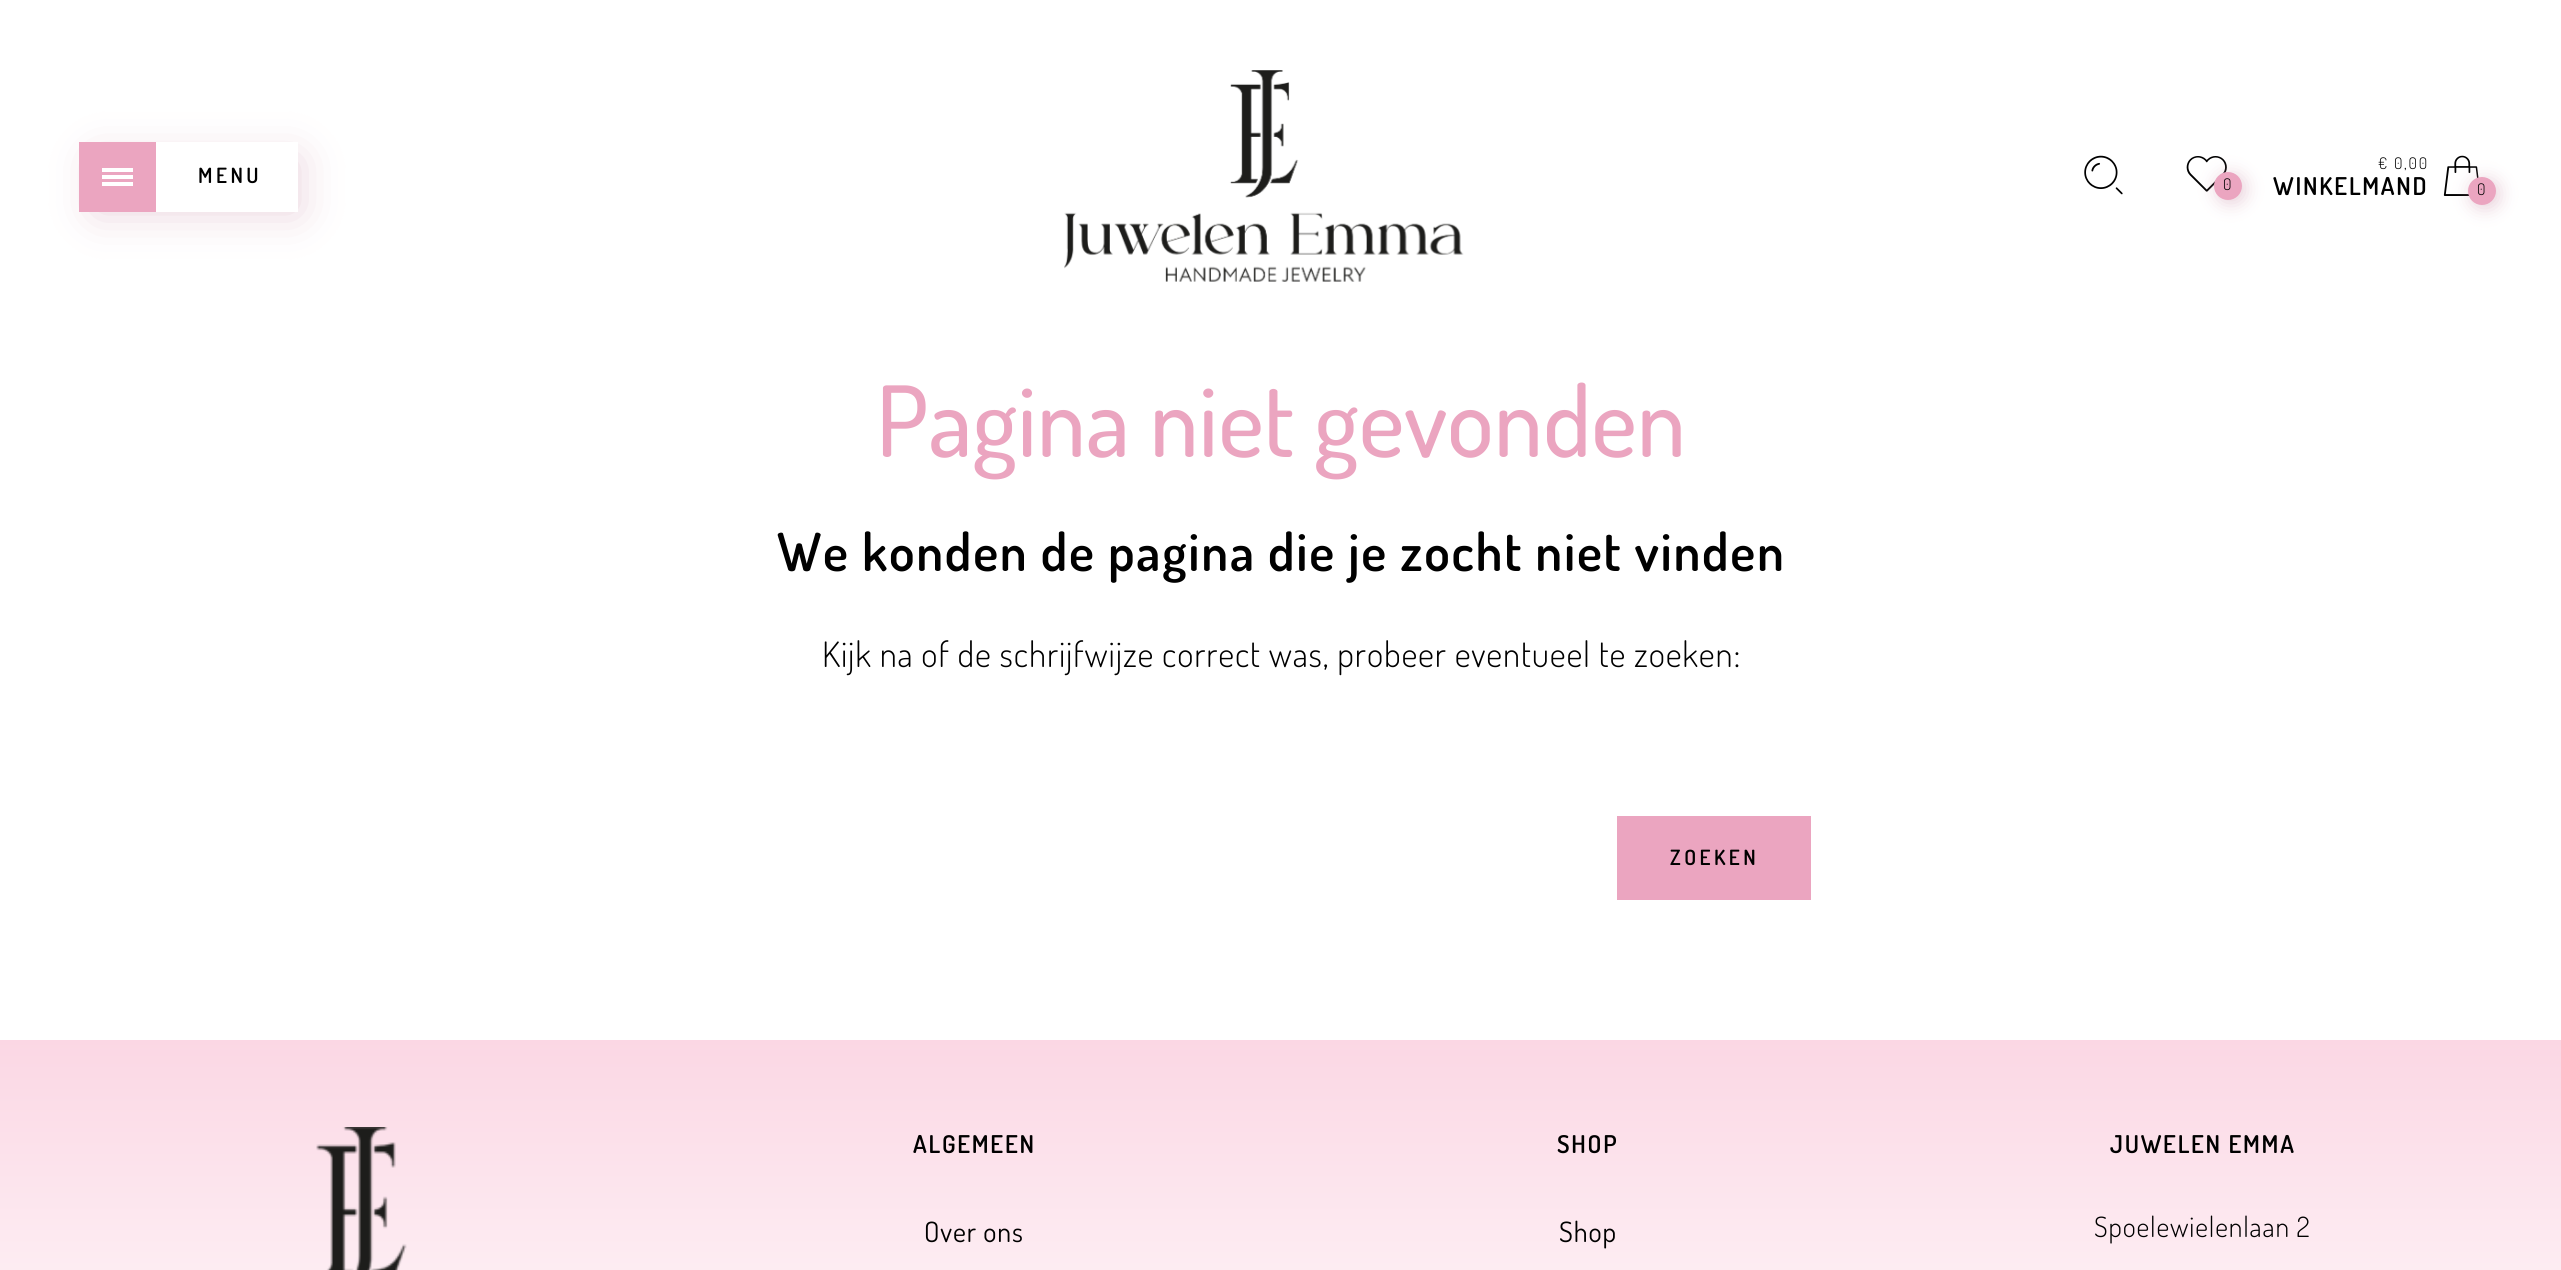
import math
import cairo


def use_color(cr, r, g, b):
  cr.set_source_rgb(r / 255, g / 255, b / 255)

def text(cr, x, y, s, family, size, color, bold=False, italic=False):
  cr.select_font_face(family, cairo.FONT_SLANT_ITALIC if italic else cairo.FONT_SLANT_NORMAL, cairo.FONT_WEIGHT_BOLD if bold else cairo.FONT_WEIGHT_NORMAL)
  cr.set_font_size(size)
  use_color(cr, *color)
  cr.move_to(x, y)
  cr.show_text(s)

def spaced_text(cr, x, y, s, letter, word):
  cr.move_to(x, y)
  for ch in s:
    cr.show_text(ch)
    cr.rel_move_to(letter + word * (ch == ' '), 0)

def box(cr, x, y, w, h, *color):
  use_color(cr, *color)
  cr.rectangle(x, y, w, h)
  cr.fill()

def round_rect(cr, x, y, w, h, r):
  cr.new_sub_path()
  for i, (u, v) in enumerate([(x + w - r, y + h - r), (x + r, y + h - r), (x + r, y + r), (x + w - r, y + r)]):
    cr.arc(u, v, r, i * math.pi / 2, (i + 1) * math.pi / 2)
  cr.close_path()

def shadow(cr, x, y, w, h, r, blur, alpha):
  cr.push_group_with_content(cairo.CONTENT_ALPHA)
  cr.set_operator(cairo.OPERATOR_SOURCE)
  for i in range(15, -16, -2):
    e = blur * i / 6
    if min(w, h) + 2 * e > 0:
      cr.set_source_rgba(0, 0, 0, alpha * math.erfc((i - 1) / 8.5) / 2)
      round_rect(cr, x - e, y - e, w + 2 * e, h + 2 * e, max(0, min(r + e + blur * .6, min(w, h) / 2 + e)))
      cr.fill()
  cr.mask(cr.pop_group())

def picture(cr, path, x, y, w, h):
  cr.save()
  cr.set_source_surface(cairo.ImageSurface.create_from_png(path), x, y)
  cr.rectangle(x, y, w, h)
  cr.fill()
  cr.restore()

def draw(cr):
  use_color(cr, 255, 255, 255)
  cr.paint()
  use_color(cr, 200, 140, 163)
  shadow(cr, 96, 159, 202, 53, 0, 22, 0.4)
  box(cr, 156, 142, 142, 70, 255, 255, 255)
  box(cr, 79, 142, 77, 70, 235, 165, 192)
  box(cr, 102, 175, 31, 4, 255, 255, 255)
  box(cr, 102, 168, 31, 4, 255, 255, 255)
  box(cr, 102, 182, 31, 4, 255, 255, 255)
  picture(cr, "img_01.png", 1064, 70, 400, 212)
  picture(cr, "img_02.png", 2084, 155, 39, 40)
  picture(cr, "img_03.png", 2186, 156, 41, 36)
  use_color(cr, 200, 140, 163)
  shadow(cr, 2217, 175, 28, 28, 14, 9, 0.4)
  use_color(cr, 235, 165, 192)
  cr.arc(2228, 186, 14, 0, 2 * math.pi)
  cr.fill()
  picture(cr, "img_04.png", 2443, 155, 36, 41)
  use_color(cr, 200, 140, 163)
  shadow(cr, 2471, 180, 28, 28, 14, 9, 0.4)
  use_color(cr, 235, 165, 192)
  cr.arc(2482, 191, 14, 0, 2 * math.pi)
  cr.fill()
  box(cr, 1617, 816, 194, 84, 235, 165, 192)
  gradient = cairo.LinearGradient(1281, 1039, 1281, 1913)
  gradient.add_color_stop_rgba(0, 0.984, 0.843, 0.894, 1)
  gradient.add_color_stop_rgba(0.5, 1, 1, 1, 1)
  cr.set_source(gradient)
  cr.rectangle(0, 1040, 2561, 230)
  cr.fill()
  picture(cr, "img_05.png", 316, 1127, 91, 143)
  cr.select_font_face("Dosis SemiBold")
  cr.set_font_size(21)
  use_color(cr, 0, 0, 0)
  spaced_text(cr, 198, 183, "MENU", 3.5, 0)
  cr.select_font_face("Dosis Light")
  cr.set_font_size(16)
  spaced_text(cr, 2223, 190, "0", 0.88, 0)
  spaced_text(cr, 2378, 169, "€ 0,00", 1.75, 0)
  cr.select_font_face("Dosis SemiBold")
  cr.set_font_size(24.5)
  spaced_text(cr, 2273, 195, "WINKELMAND", 1.75, 0)
  cr.select_font_face("Dosis Light")
  cr.set_font_size(16)
  spaced_text(cr, 2477, 195, "0", 0.88, 0)
  text(cr, 876, 457, "Pagina niet gevonden", "Dosis Medium", 98, (235, 165, 192))
  cr.select_font_face("Dosis SemiBold")
  cr.set_font_size(52.5)
  use_color(cr, 0, 0, 0)
  spaced_text(cr, 777, 571, "We konden de pagina die je zocht niet vinden", 1.75, 0)
  cr.select_font_face("Dosis Light")
  cr.set_font_size(35)
  spaced_text(cr, 822, 667, "Kijk na of de schrijfwijze correct was, probeer eventueel te zoeken:", 0.88, 0)
  cr.select_font_face("Dosis SemiBold")
  cr.set_font_size(21)
  spaced_text(cr, 1670, 865, "ZOEKEN", 3.5, 0)
  cr.set_font_size(24.5)
  spaced_text(cr, 913, 1153, "ALGEMEEN", 1.75, 0)
  cr.select_font_face("Dosis")
  cr.set_font_size(28)
  spaced_text(cr, 924, 1242, "Over ons", 0.88, 0)
  cr.select_font_face("Dosis SemiBold")
  cr.set_font_size(24.5)
  spaced_text(cr, 1557, 1153, "SHOP", 1.75, 0)
  cr.select_font_face("Dosis")
  cr.set_font_size(28)
  spaced_text(cr, 1559, 1242, "Shop", 0.88, 0)
  cr.select_font_face("Dosis SemiBold")
  cr.set_font_size(24.5)
  spaced_text(cr, 2110, 1153, "JUWELEN EMMA", 1.75, 0)
  cr.select_font_face("Dosis Light")
  cr.set_font_size(28)
  spaced_text(cr, 2094, 1237, "Spoelewielenlaan 2", 0.88, 0)


surface = cairo.ImageSurface(cairo.FORMAT_RGB24, 2561, 1270)
cr = cairo.Context(surface)
options = cairo.FontOptions()
options.set_hint_metrics(cairo.HINT_METRICS_OFF)
options.set_hint_style(cairo.HINT_STYLE_NONE)
cr.set_font_options(options)
cr.set_miter_limit(4)
draw(cr)
surface.write_to_png("out.png")
